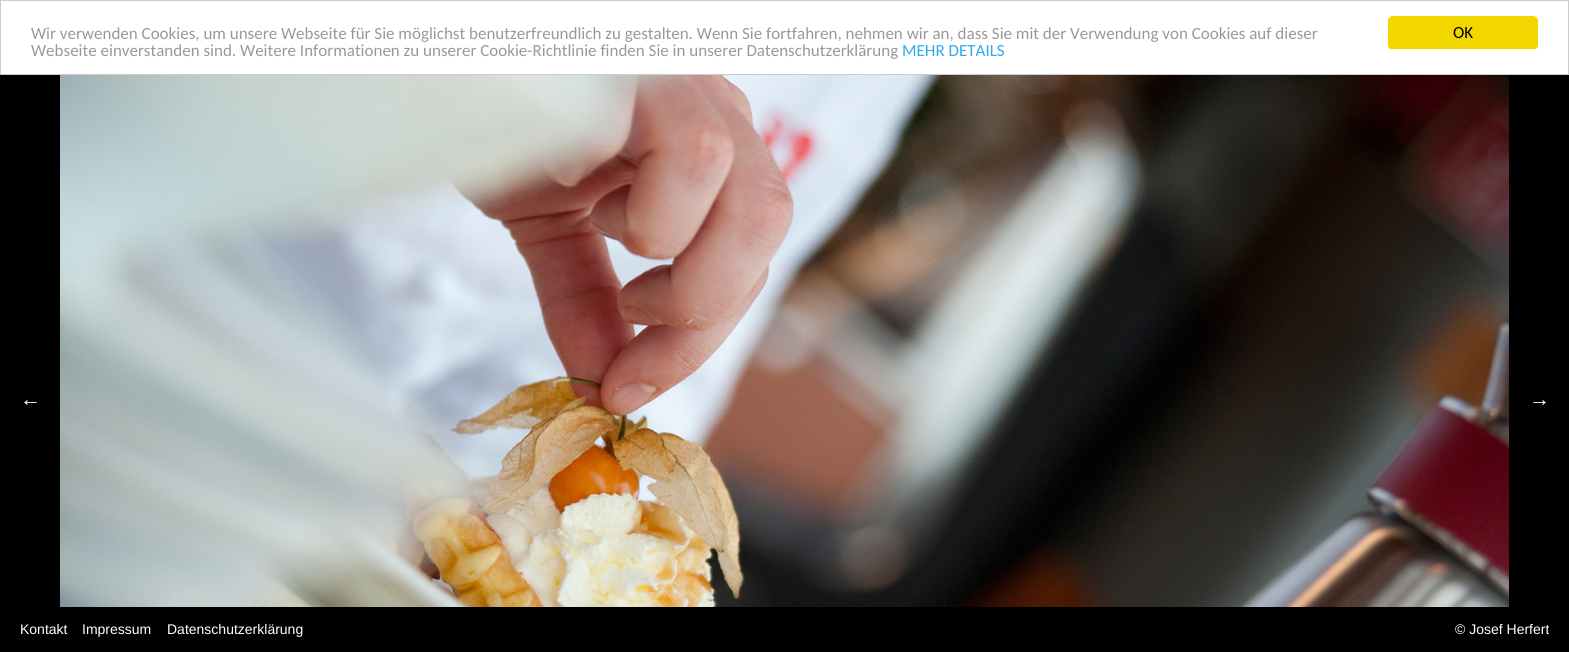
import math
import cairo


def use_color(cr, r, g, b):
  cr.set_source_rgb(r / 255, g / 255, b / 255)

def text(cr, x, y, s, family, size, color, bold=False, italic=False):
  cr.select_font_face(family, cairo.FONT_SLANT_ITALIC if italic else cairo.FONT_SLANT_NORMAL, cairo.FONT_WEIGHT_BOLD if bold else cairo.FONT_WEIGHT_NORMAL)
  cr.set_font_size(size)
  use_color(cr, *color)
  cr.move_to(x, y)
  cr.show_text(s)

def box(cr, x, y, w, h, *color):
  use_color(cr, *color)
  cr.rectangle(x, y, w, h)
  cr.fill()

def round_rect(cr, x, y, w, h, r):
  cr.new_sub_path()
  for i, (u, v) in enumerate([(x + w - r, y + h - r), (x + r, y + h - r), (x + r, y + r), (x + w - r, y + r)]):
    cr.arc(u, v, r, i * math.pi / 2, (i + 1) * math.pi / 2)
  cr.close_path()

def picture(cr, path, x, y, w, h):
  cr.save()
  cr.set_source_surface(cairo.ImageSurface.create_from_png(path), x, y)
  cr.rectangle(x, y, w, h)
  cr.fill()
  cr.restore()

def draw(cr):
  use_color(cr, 0, 0, 0)
  cr.paint()
  use_color(cr, 255, 255, 255)
  cr.rectangle(0.5, 0.5, 1568, 74)
  cr.fill_preserve()
  use_color(cr, 204, 204, 204)
  cr.set_line_width(1)
  cr.stroke()
  use_color(cr, 241, 214, 0)
  round_rect(cr, 1388, 16, 150, 34, 5)
  cr.fill()
  box(cr, 1391, 49, 145, 1, 255, 255, 255)
  picture(cr, "img_01.png", 60, 75, 1449, 532)
  text(cr, 31, 39, "Wir verwenden Cookies, um unsere Webseite für Sie möglichst benutzerfreundlich zu gestalten. Wenn Sie fortfahren, nehmen wir an, dass Sie mit der Verwendung von Cookies auf dieser", "Carlito", 17, (153, 153, 153))
  text(cr, 31, 56, "Webseite einverstanden sind. Weitere Informationen zu unserer Cookie-Richtlinie finden Sie in unserer Datenschutzerklärung", "Carlito", 17, (153, 153, 153))
  text(cr, 902, 56, "MEHR DETAILS", "Carlito", 17, (49, 168, 240))
  text(cr, 1453, 38, "OK", "Carlito", 17, (0, 0, 0))
  text(cr, 20, 406, "←", "Liberation Sans", 21, (255, 255, 255))
  text(cr, 1529, 406, "→", "Liberation Sans", 21, (255, 255, 255))
  text(cr, 20, 634, "Kontakt", "Liberation Sans", 14, (255, 255, 255))
  text(cr, 82, 634, "Impressum", "Liberation Sans", 14, (255, 255, 255))
  text(cr, 167, 634, "Datenschutzerklärung", "Liberation Sans", 14, (255, 255, 255))
  text(cr, 1455, 634, "© Josef Herfert", "Liberation Sans", 14, (255, 255, 255))


surface = cairo.ImageSurface(cairo.FORMAT_RGB24, 1569, 652)
cr = cairo.Context(surface)
options = cairo.FontOptions()
options.set_hint_metrics(cairo.HINT_METRICS_OFF)
options.set_hint_style(cairo.HINT_STYLE_NONE)
cr.set_font_options(options)
cr.set_miter_limit(4)
draw(cr)
surface.write_to_png("out.png")
